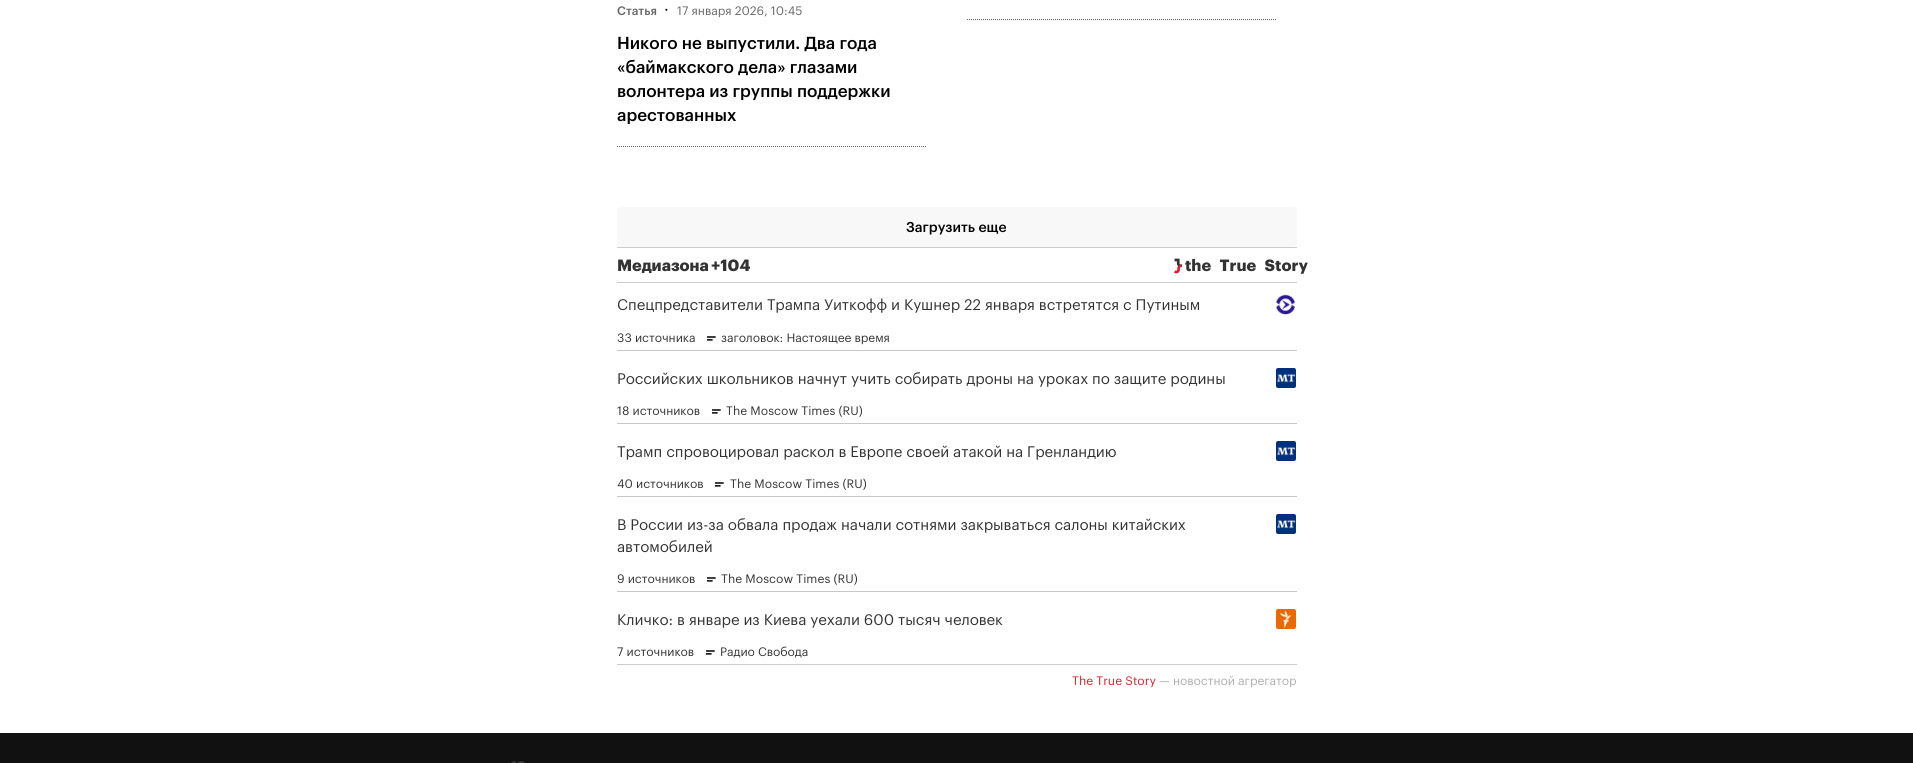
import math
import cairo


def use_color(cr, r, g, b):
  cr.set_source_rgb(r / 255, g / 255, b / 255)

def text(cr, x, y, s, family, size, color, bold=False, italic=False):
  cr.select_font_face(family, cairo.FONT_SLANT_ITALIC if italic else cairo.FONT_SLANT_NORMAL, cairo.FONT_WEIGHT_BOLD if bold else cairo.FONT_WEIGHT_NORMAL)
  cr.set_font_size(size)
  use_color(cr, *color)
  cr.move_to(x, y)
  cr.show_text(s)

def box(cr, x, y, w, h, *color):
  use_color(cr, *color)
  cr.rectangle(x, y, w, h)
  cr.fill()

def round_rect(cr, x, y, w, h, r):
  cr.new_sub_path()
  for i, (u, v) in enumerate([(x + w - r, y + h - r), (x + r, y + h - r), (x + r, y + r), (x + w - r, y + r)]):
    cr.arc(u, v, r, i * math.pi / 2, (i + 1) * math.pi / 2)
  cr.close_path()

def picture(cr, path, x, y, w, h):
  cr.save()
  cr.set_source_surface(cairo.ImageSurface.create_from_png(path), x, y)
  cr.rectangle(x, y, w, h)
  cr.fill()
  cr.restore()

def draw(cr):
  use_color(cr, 255, 255, 255)
  cr.paint()
  cr.new_path()
  cr.move_to(617, 146.5)
  cr.line_to(927, 146.5)
  use_color(cr, 102, 102, 102)
  cr.set_line_width(1)
  cr.set_dash([1, 1])
  cr.stroke()
  cr.new_path()
  cr.move_to(967, 19.5)
  cr.line_to(1277, 19.5)
  cr.stroke()
  use_color(cr, 248, 248, 248)
  round_rect(cr, 617, 207, 680, 40, 4)
  cr.fill()
  box(cr, 617, 247, 680, 1, 204, 204, 204)
  picture(cr, "img_01.png", 1174, 258, 8, 16)
  box(cr, 617, 282, 680, 1, 204, 204, 204)
  box(cr, 617, 664, 680, 1, 204, 204, 204)
  picture(cr, "img_02.png", 1276, 294, 20, 21)
  picture(cr, "img_03.png", 707, 336, 9, 5)
  box(cr, 617, 350, 680, 1, 199, 199, 199)
  picture(cr, "img_04.png", 1276, 368, 20, 20)
  picture(cr, "img_03.png", 712, 409, 9, 5)
  box(cr, 617, 423, 680, 1, 199, 199, 199)
  picture(cr, "img_04.png", 1276, 441, 20, 20)
  picture(cr, "img_03.png", 715, 482, 9, 5)
  box(cr, 617, 496, 680, 1, 199, 199, 199)
  picture(cr, "img_04.png", 1276, 514, 20, 20)
  picture(cr, "img_03.png", 707, 577, 9, 5)
  box(cr, 617, 591, 680, 1, 199, 199, 199)
  picture(cr, "img_05.png", 1276, 609, 20, 20)
  picture(cr, "img_03.png", 706, 650, 9, 5)
  box(cr, 0, 733, 1913, 30, 17, 17, 17)
  picture(cr, "img_06.png", 511, 761, 14, 2)
  text(cr, 617, 15, "Статья", "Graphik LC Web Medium", 12, (102, 102, 102))
  text(cr, 664, 15, "·", "Graphik LC Web", 16, (0, 0, 0))
  text(cr, 677, 15, "17 января 2026, 10:45", "Graphik LC Web", 12, (102, 102, 102))
  text(cr, 617, 49, "Никого не выпустили. Два года", "Graphik LC Web Medium", 17, (0, 0, 0))
  text(cr, 617, 73, "«баймакского дела» глазами", "Graphik LC Web Medium", 17, (0, 0, 0))
  text(cr, 617, 97, "волонтера из группы поддержки", "Graphik LC Web Medium", 17, (0, 0, 0))
  text(cr, 617, 121, "арестованных", "Graphik LC Web Medium", 17, (0, 0, 0))
  text(cr, 906, 232, "Загрузить еще", "Graphik LC Web Medium", 14, (0, 0, 0))
  text(cr, 617, 271, "Медиазона", "Graphik LC Web", 16, (51, 51, 51), bold=True)
  text(cr, 711, 271, "+104", "Graphik LC Web", 16, (51, 51, 51), bold=True)
  text(cr, 1185, 271, "the True Story", "Graphik LC Web", 16, (51, 51, 51), bold=True)
  text(cr, 617, 310, "Спецпредставители Трампа Уиткофф и Кушнер 22 января встретятся с Путиным", "Graphik LC Web", 15, (51, 51, 51))
  text(cr, 617, 342, "33 источника", "Graphik LC Web", 12, (51, 51, 51))
  text(cr, 721, 342, "заголовок: Настоящее время", "Graphik LC Web", 12, (51, 51, 51))
  text(cr, 617, 384, "Российских школьников начнут учить собирать дроны на уроках по защите родины", "Graphik LC Web", 15, (51, 51, 51))
  text(cr, 617, 415, "18 источников", "Graphik LC Web", 12, (51, 51, 51))
  text(cr, 726, 415, "The Moscow Times (RU)", "Graphik LC Web", 12, (51, 51, 51))
  text(cr, 617, 457, "Трамп спровоцировал раскол в Европе своей атакой на Гренландию", "Graphik LC Web", 15, (51, 51, 51))
  text(cr, 617, 488, "40 источников", "Graphik LC Web", 12, (51, 51, 51))
  text(cr, 730, 488, "The Moscow Times (RU)", "Graphik LC Web", 12, (51, 51, 51))
  text(cr, 617, 530, "В России из-за обвала продаж начали сотнями закрываться салоны китайских", "Graphik LC Web", 15, (51, 51, 51))
  text(cr, 617, 552, "автомобилей", "Graphik LC Web", 15, (51, 51, 51))
  text(cr, 617, 583, "9 источников", "Graphik LC Web", 12, (51, 51, 51))
  text(cr, 721, 583, "The Moscow Times (RU)", "Graphik LC Web", 12, (51, 51, 51))
  text(cr, 617, 625, "Кличко: в январе из Киева уехали 600 тысяч человек", "Graphik LC Web", 15, (51, 51, 51))
  text(cr, 617, 656, "7 источников", "Graphik LC Web", 12, (51, 51, 51))
  text(cr, 720, 656, "Радио Свобода", "Graphik LC Web", 12, (51, 51, 51))
  text(cr, 1072, 685, "The True Story", "Graphik LC Web", 12, (215, 33, 43))
  text(cr, 1159, 685, "— новостной агрегатор", "Graphik LC Web", 12, (173, 173, 173))


surface = cairo.ImageSurface(cairo.FORMAT_RGB24, 1913, 763)
cr = cairo.Context(surface)
options = cairo.FontOptions()
options.set_hint_metrics(cairo.HINT_METRICS_OFF)
options.set_hint_style(cairo.HINT_STYLE_NONE)
cr.set_font_options(options)
cr.set_miter_limit(4)
draw(cr)
surface.write_to_png("out.png")
